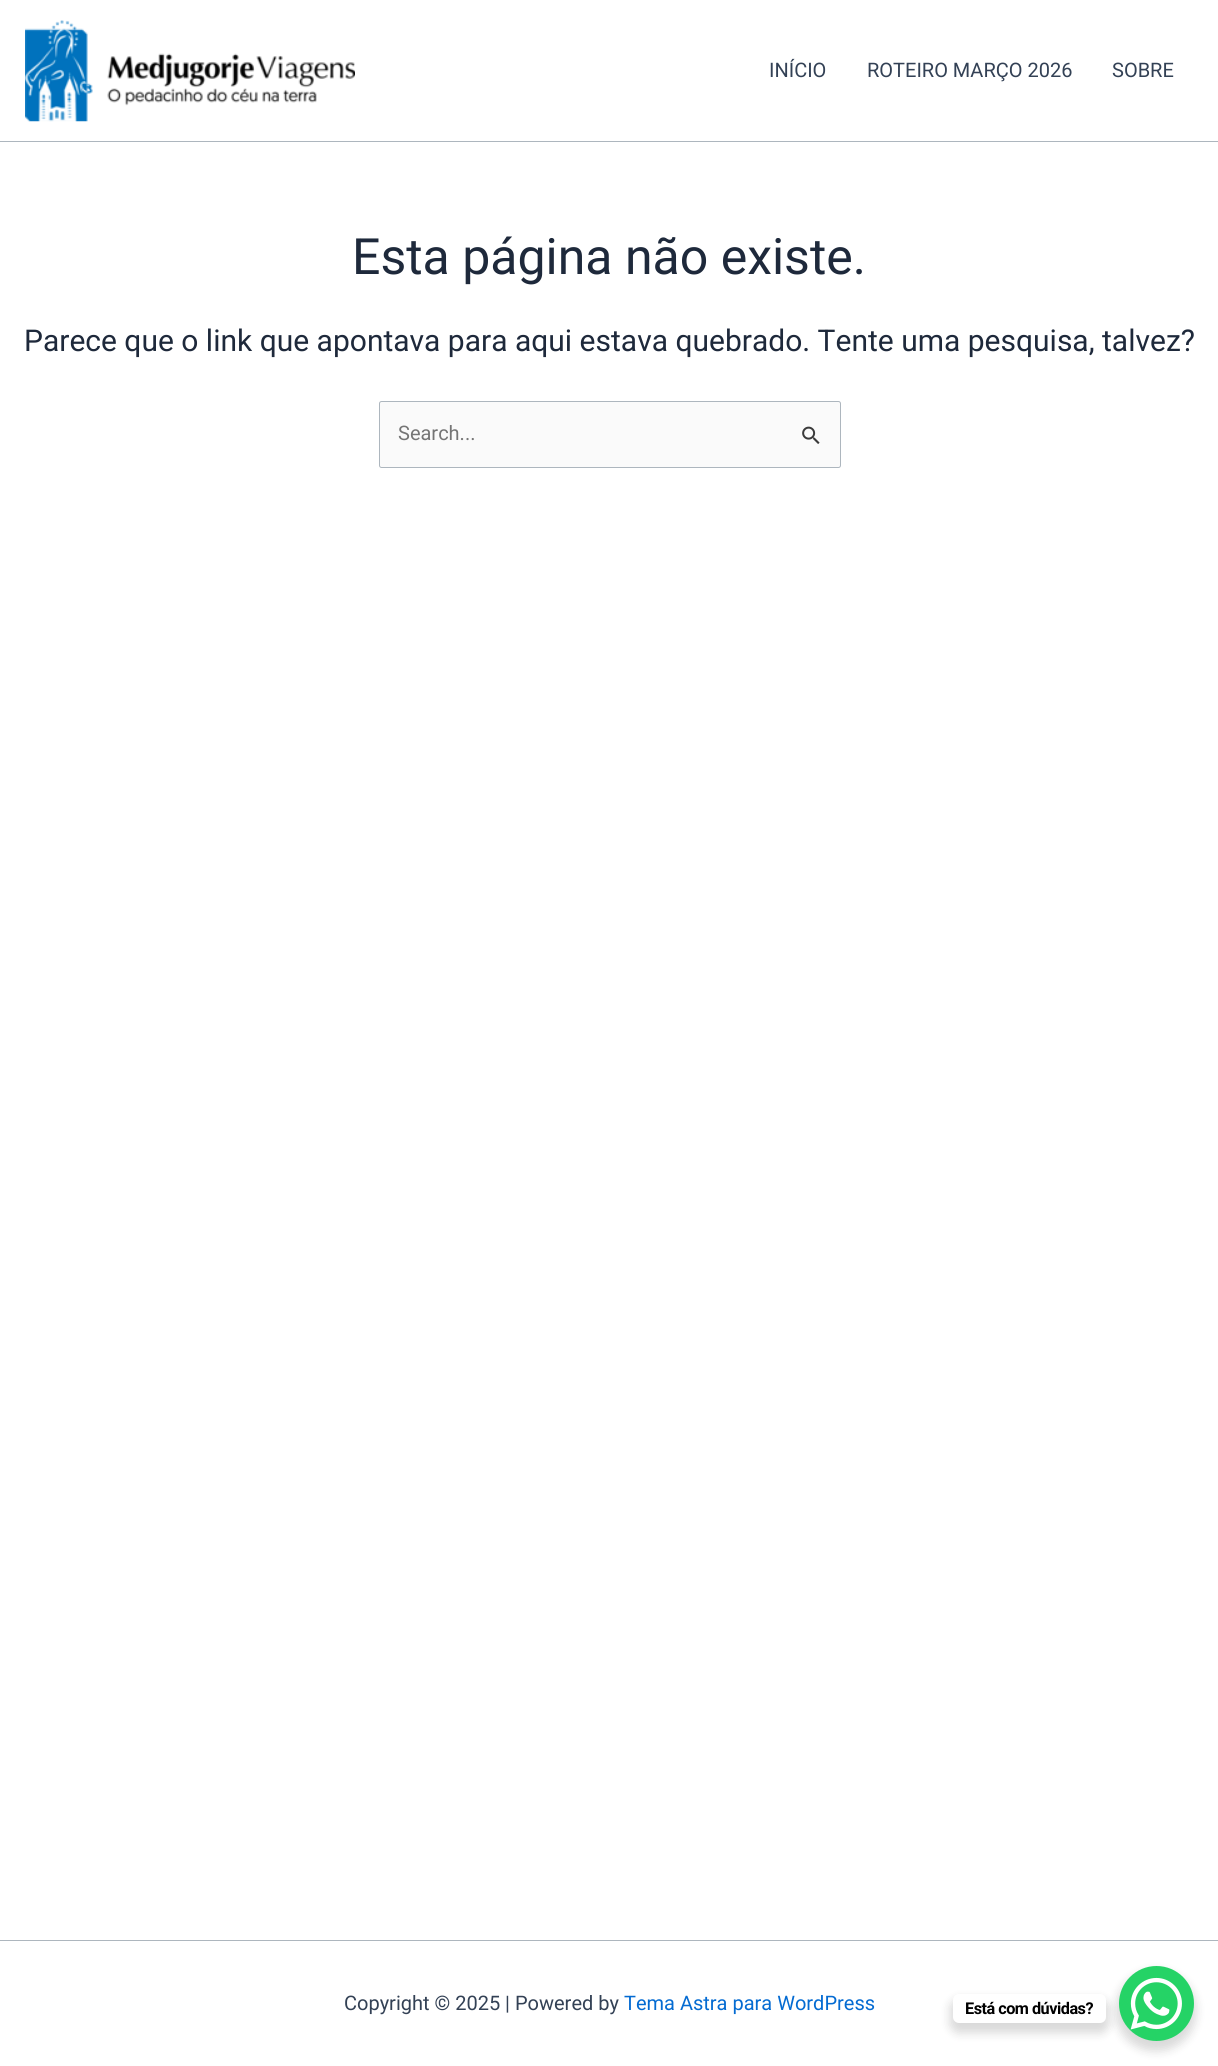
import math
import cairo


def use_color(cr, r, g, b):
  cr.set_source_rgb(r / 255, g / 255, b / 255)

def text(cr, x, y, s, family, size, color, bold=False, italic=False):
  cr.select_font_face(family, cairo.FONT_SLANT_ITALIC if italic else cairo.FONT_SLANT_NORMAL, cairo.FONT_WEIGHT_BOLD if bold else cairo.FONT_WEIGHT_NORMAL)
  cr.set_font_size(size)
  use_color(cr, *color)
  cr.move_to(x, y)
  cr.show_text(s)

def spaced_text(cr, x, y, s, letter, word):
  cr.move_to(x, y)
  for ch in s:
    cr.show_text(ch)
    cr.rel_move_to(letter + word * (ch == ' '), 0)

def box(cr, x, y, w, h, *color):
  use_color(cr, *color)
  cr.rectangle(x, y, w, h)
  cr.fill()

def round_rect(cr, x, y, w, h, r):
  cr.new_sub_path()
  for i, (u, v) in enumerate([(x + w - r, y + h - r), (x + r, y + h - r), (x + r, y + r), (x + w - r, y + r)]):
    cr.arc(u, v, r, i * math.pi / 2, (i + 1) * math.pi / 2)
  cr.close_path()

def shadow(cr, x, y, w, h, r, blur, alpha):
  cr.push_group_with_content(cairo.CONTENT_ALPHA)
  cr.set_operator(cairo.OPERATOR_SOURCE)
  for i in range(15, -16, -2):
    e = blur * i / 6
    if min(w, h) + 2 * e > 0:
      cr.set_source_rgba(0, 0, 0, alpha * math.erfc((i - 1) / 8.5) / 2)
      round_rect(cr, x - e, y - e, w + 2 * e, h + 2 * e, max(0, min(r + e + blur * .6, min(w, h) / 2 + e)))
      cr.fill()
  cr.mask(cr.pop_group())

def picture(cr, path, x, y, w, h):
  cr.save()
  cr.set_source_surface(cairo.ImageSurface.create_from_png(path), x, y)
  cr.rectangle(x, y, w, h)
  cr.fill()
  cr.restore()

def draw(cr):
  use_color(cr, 255, 255, 255)
  cr.paint()
  box(cr, 0, 141, 1218, 1, 173, 182, 190)
  picture(cr, "img_01.png", 25, 20, 330, 102)
  use_color(cr, 250, 250, 250)
  round_rect(cr, 379.5, 401.5, 461, 66, 2)
  cr.fill_preserve()
  use_color(cr, 173, 182, 190)
  cr.set_line_width(1)
  cr.stroke()
  picture(cr, "img_02.png", 802, 426, 18, 18)
  box(cr, 0, 1940, 1218, 1, 173, 182, 190)
  use_color(cr, 0, 0, 0)
  shadow(cr, 1116, 1971, 80, 80, 40, 5, 0.15)
  use_color(cr, 37, 211, 102)
  cr.arc(1156.5, 2003.5, 37.5, 0, 2 * math.pi)
  cr.fill()
  use_color(cr, 0, 0, 0)
  shadow(cr, 950, 1999, 159, 34, 9, 5, 0.15)
  use_color(cr, 255, 255, 255)
  round_rect(cr, 953, 1994, 153, 29, 6)
  cr.fill()
  picture(cr, "img_03.png", 1130, 1977, 52, 53)
  text(cr, 769, 77, "INÍCIO", "Roboto", 20, (51, 65, 85))
  text(cr, 867, 77, "ROTEIRO MARÇO 2026", "Roboto", 20, (51, 65, 85))
  text(cr, 1112, 77, "SOBRE", "Roboto", 20, (51, 65, 85))
  text(cr, 352, 274, "Esta página não existe.", "Roboto", 50, (30, 41, 59))
  text(cr, 24, 351, "Parece que o link que apontava para aqui estava quebrado. Tente uma pesquisa, talvez?", "Roboto", 30, (30, 41, 59))
  text(cr, 398, 440, "Search...", "Roboto", 20, (117, 117, 117))
  text(cr, 344, 2010, "Copyright © 2025 | Powered by", "Roboto", 20, (51, 65, 85))
  text(cr, 624, 2010, "Tema Astra para WordPress", "Roboto", 20, (4, 107, 210))
  cr.select_font_face("Roboto", cairo.FONT_SLANT_NORMAL, cairo.FONT_WEIGHT_BOLD)
  cr.set_font_size(16.25)
  use_color(cr, 0, 0, 0)
  spaced_text(cr, 965, 2014, "Está com dúvidas?", -0.5, 0)


surface = cairo.ImageSurface(cairo.FORMAT_RGB24, 1218, 2066)
cr = cairo.Context(surface)
options = cairo.FontOptions()
options.set_hint_metrics(cairo.HINT_METRICS_OFF)
options.set_hint_style(cairo.HINT_STYLE_NONE)
cr.set_font_options(options)
cr.set_miter_limit(4)
draw(cr)
surface.write_to_png("out.png")
